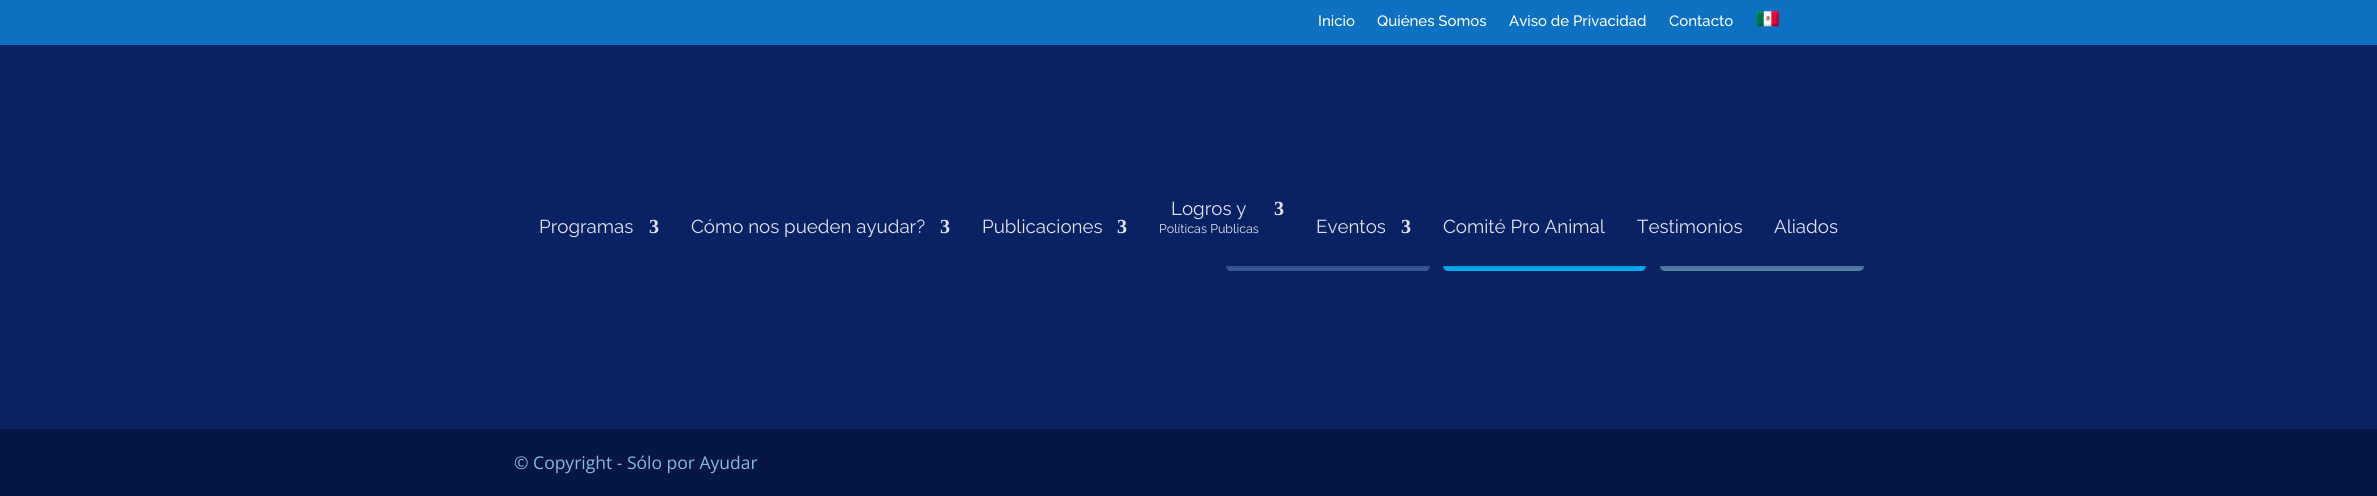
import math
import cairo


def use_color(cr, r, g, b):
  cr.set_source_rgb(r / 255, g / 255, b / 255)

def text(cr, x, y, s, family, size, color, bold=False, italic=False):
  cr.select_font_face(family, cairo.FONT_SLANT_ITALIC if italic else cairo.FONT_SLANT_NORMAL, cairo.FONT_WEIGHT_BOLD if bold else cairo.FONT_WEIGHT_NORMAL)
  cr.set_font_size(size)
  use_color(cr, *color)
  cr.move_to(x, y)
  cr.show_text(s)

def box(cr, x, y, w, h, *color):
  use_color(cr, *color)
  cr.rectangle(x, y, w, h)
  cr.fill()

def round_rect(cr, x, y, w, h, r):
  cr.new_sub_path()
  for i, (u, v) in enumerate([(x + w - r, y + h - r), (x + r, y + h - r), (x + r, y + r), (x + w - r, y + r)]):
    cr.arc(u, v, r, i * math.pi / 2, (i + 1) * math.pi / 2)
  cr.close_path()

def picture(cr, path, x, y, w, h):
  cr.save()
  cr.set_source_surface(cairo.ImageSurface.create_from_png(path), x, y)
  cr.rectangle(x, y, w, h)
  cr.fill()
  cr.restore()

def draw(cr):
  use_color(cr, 10, 34, 100)
  cr.paint()
  box(cr, 0, 0, 2377, 45, 12, 113, 195)
  picture(cr, "img_01.png", 1756, 11, 23, 16)
  use_color(cr, 58, 87, 154)
  round_rect(cr, 1226, 169, 204, 102, 5)
  cr.fill()
  use_color(cr, 0, 171, 240)
  round_rect(cr, 1443, 169, 203, 102, 5)
  cr.fill()
  use_color(cr, 81, 127, 164)
  round_rect(cr, 1660, 169, 204, 102, 5)
  cr.fill()
  cr.set_source_rgba(0, 0, 0, 0.1)
  cr.new_path()
  cr.move_to(0, 266)
  cr.line_to(0, 268)
  cr.line_to(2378, 268)
  cr.line_to(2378, 39)
  cr.line_to(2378, 266)
  cr.close_path()
  cr.fill()
  box(cr, 1226, 169, 638, 97, 10, 34, 100)
  box(cr, 0, 429, 2377, 67, 7, 23, 68)
  text(cr, 1318, 26, "Inicio", "Raleway Medium", 15, (255, 255, 255))
  text(cr, 1377, 26, "Quiénes Somos", "Raleway Medium", 15, (255, 255, 255))
  text(cr, 1509, 26, "Aviso de Privacidad", "Raleway Medium", 15, (255, 255, 255))
  text(cr, 1669, 26, "Contacto", "Raleway Medium", 15, (255, 255, 255))
  text(cr, 539, 233, "Programas", "Raleway", 18.75, (226, 228, 236))
  text(cr, 649, 233, "3", "Liberation Serif", 20, (226, 228, 236), bold=True)
  text(cr, 691, 233, "Cómo nos pueden ayudar?", "Raleway", 18.75, (226, 228, 236))
  text(cr, 940, 233, "3", "Liberation Serif", 20, (226, 228, 236), bold=True)
  text(cr, 982, 233, "Publicaciones", "Raleway", 18.75, (226, 228, 236))
  text(cr, 1117, 233, "3", "Liberation Serif", 20, (226, 228, 236), bold=True)
  text(cr, 1171, 215, "Logros y", "Raleway", 18.75, (226, 228, 236))
  text(cr, 1274, 215, "3", "Liberation Serif", 20, (226, 228, 236), bold=True)
  text(cr, 1159, 233, "Políticas Publicas", "Raleway", 12.5, (226, 228, 236))
  text(cr, 1316, 233, "Eventos", "Raleway", 18.75, (226, 228, 236))
  text(cr, 1401, 233, "3", "Liberation Serif", 20, (226, 228, 236), bold=True)
  text(cr, 1443, 233, "Comité Pro Animal", "Raleway", 18.75, (226, 228, 236))
  text(cr, 1637, 233, "Testimonios", "Raleway", 18.75, (226, 228, 236))
  text(cr, 1774, 233, "Aliados", "Raleway", 18.75, (226, 228, 236))
  text(cr, 514, 469, "© Copyright - Sólo por Ayudar", "Open Sans", 17.5, (136, 185, 216))


surface = cairo.ImageSurface(cairo.FORMAT_RGB24, 2377, 496)
cr = cairo.Context(surface)
options = cairo.FontOptions()
options.set_hint_metrics(cairo.HINT_METRICS_OFF)
options.set_hint_style(cairo.HINT_STYLE_NONE)
cr.set_font_options(options)
cr.set_miter_limit(4)
draw(cr)
surface.write_to_png("out.png")
